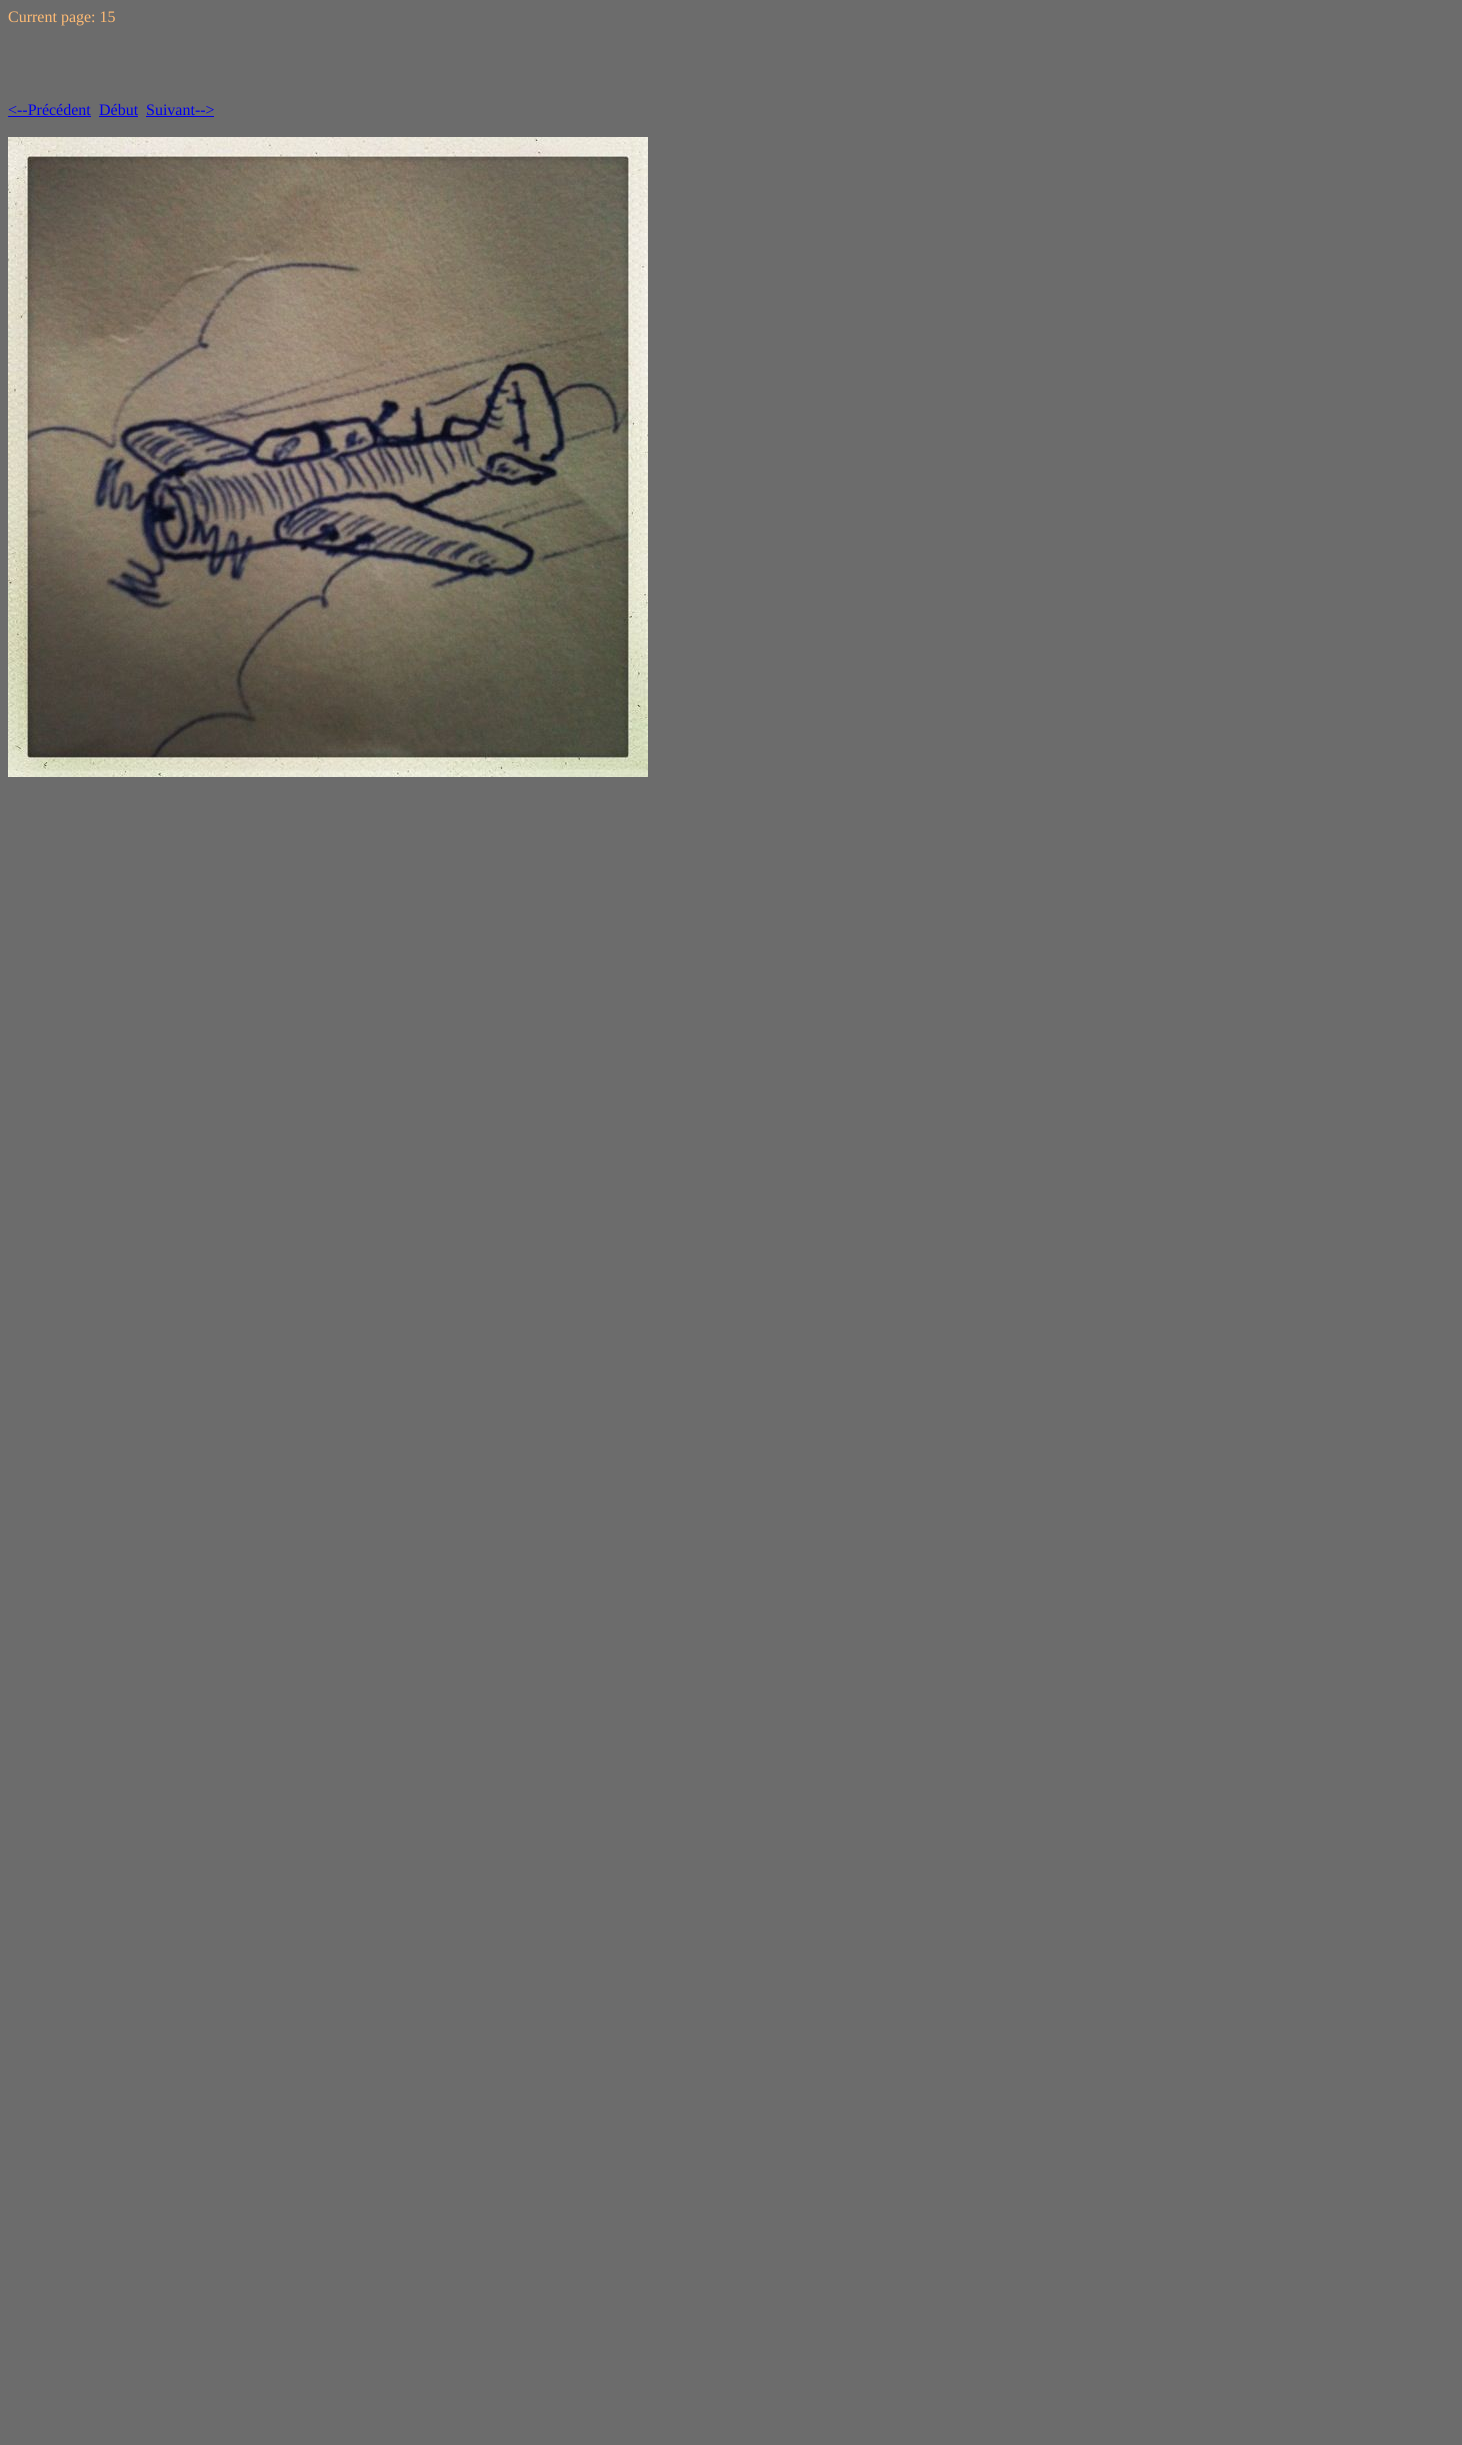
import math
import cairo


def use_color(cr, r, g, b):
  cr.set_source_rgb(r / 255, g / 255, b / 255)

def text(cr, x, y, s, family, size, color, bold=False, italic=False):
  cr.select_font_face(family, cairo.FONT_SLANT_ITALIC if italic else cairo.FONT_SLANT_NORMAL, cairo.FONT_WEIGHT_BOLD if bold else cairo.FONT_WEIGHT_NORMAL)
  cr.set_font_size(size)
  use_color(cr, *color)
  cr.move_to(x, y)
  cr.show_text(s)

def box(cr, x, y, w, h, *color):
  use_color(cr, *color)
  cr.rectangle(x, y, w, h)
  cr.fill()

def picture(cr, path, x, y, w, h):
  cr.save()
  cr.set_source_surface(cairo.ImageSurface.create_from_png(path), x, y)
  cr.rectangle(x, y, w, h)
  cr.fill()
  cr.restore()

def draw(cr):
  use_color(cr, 108, 108, 108)
  cr.paint()
  box(cr, 8, 116, 83, 1, 0, 0, 238)
  box(cr, 99, 116, 39, 1, 0, 0, 238)
  box(cr, 146, 116, 68, 1, 0, 0, 238)
  picture(cr, "img_01.png", 8, 137, 640, 640)
  text(cr, 8, 22, "Current page: 15", "Liberation Serif", 16, (255, 187, 116))
  text(cr, 8, 115, "<--Précédent", "Liberation Serif", 16, (0, 0, 238))
  text(cr, 99, 115, "Début", "Liberation Serif", 16, (0, 0, 238))
  text(cr, 146, 115, "Suivant-->", "Liberation Serif", 16, (0, 0, 238))


surface = cairo.ImageSurface(cairo.FORMAT_RGB24, 1462, 2445)
cr = cairo.Context(surface)
options = cairo.FontOptions()
options.set_hint_metrics(cairo.HINT_METRICS_OFF)
options.set_hint_style(cairo.HINT_STYLE_NONE)
cr.set_font_options(options)
cr.set_miter_limit(4)
draw(cr)
surface.write_to_png("out.png")
